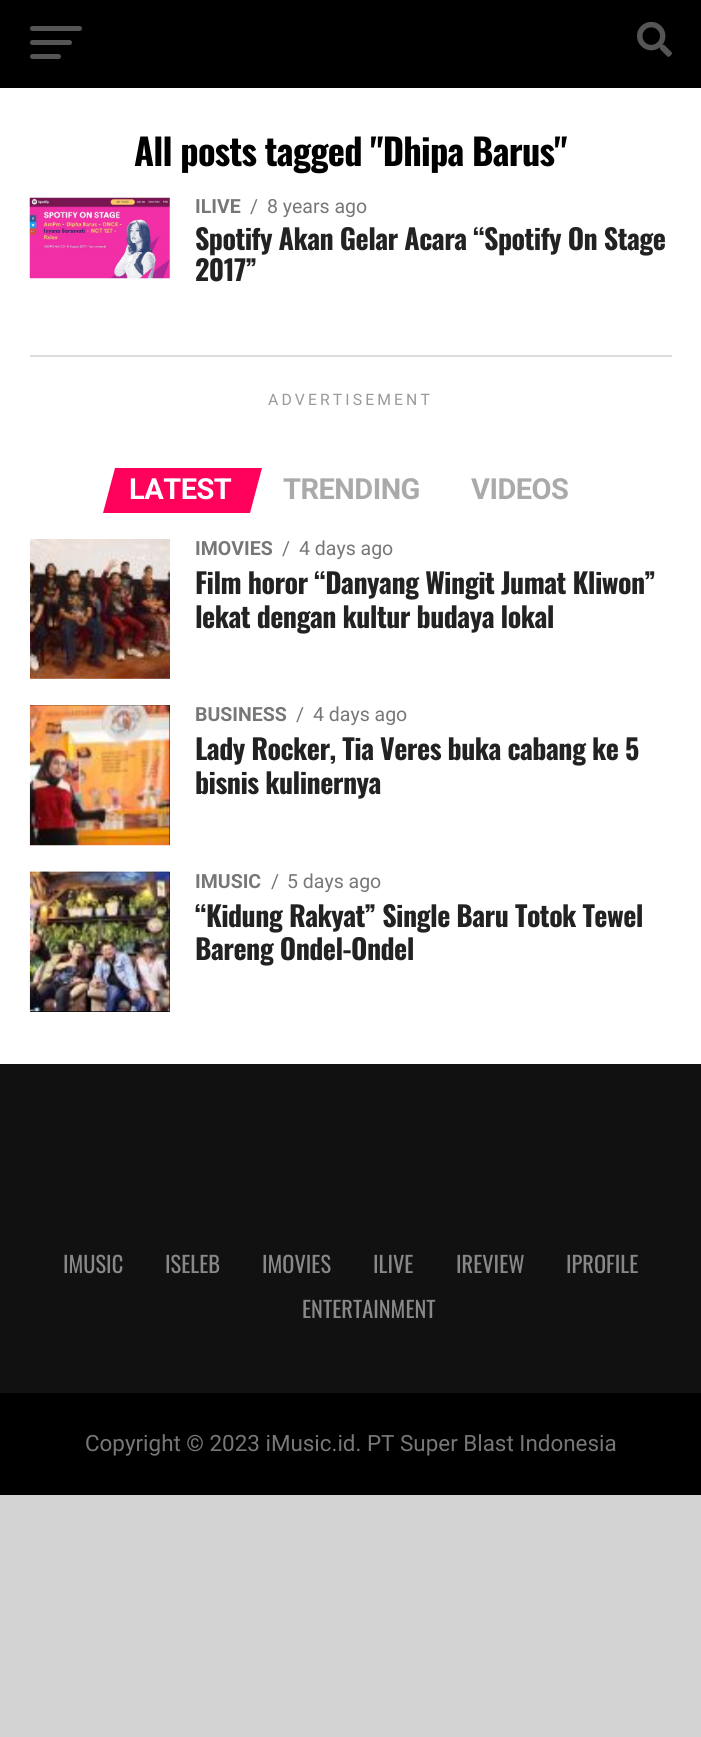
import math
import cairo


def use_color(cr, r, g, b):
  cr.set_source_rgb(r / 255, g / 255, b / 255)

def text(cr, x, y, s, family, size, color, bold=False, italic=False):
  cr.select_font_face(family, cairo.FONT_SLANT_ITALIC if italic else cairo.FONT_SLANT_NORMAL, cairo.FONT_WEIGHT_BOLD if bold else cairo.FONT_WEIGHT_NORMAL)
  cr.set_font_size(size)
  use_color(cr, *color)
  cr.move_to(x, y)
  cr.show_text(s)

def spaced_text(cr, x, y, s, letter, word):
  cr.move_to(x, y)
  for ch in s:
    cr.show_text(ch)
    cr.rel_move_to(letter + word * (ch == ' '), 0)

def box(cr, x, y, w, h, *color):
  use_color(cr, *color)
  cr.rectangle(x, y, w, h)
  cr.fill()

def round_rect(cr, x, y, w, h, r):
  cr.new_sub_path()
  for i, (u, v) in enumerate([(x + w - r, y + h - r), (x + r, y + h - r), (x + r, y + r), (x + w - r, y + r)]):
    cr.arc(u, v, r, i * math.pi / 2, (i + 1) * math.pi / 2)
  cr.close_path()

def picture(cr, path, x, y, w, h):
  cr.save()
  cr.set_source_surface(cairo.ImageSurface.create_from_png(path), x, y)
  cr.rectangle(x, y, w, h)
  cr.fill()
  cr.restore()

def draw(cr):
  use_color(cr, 211, 211, 211)
  cr.paint()
  box(cr, 0, 0, 701, 88, 0, 0, 0)
  use_color(cr, 85, 85, 85)
  round_rect(cr, 30, 26, 52, 5, 2.5)
  cr.fill()
  round_rect(cr, 30, 40, 42, 5, 2.5)
  cr.fill()
  round_rect(cr, 30, 54, 31, 5, 2.5)
  cr.fill()
  picture(cr, "img_01.png", 637, 21, 35, 36)
  box(cr, 0, 88, 701, 976, 255, 255, 255)
  picture(cr, "img_02.png", 29, 197, 141, 82)
  box(cr, 30, 355, 642, 2, 221, 221, 221)
  use_color(cr, 255, 0, 91)
  cr.new_path()
  cr.move_to(115, 468)
  cr.line_to(262, 468)
  cr.line_to(250, 513)
  cr.line_to(103, 513)
  cr.close_path()
  cr.fill()
  picture(cr, "img_03.png", 30, 539, 140, 140)
  box(cr, 30, 705, 140, 140, 0, 0, 0)
  picture(cr, "img_04.png", 29, 705, 141, 141)
  box(cr, 30, 872, 140, 140, 0, 0, 0)
  picture(cr, "img_05.png", 29, 871, 141, 141)
  box(cr, 0, 1064, 701, 329, 17, 17, 17)
  box(cr, 0, 1393, 701, 102, 0, 0, 0)
  cr.select_font_face("Oswald", cairo.FONT_SLANT_NORMAL, cairo.FONT_WEIGHT_BOLD)
  cr.set_font_size(36.4)
  spaced_text(cr, 134, 166, "All posts tagged \"Dhipa Barus\"", -0.75, 0)
  text(cr, 195, 213, "ILIVE", "Roboto", 19.5, (119, 119, 119), bold=True)
  text(cr, 250, 213, "/", "Roboto", 19.5, (119, 119, 119))
  text(cr, 267, 213, "8 years ago", "Roboto", 19.5, (119, 119, 119))
  cr.select_font_face("Oswald", cairo.FONT_SLANT_NORMAL, cairo.FONT_WEIGHT_BOLD)
  cr.set_font_size(28)
  use_color(cr, 34, 34, 34)
  spaced_text(cr, 195, 250, "Spotify Akan Gelar Acara “Spotify On Stage", -0.55, 0)
  spaced_text(cr, 195, 281, "2017”", -0.55, 0)
  cr.select_font_face("Roboto")
  cr.set_font_size(15.75)
  use_color(cr, 153, 153, 153)
  spaced_text(cr, 268, 405, "ADVERTISEMENT", 3.1, 0)
  cr.select_font_face("Roboto", cairo.FONT_SLANT_NORMAL, cairo.FONT_WEIGHT_BOLD)
  cr.set_font_size(29)
  use_color(cr, 255, 255, 255)
  spaced_text(cr, 129, 499, "LATEST", -0.5, 0)
  use_color(cr, 170, 170, 170)
  spaced_text(cr, 283, 499, "TRENDING", -0.5, 0)
  spaced_text(cr, 471, 499, "VIDEOS", -0.5, 0)
  text(cr, 195, 555, "IMOVIES", "Roboto", 19.5, (119, 119, 119), bold=True)
  text(cr, 282, 555, "/", "Roboto", 19.5, (119, 119, 119))
  text(cr, 299, 555, "4 days ago", "Roboto", 19.5, (119, 119, 119))
  cr.select_font_face("Oswald", cairo.FONT_SLANT_NORMAL, cairo.FONT_WEIGHT_BOLD)
  cr.set_font_size(28)
  use_color(cr, 34, 34, 34)
  spaced_text(cr, 195, 594, "Film horor “Danyang Wingit Jumat Kliwon”", -0.55, 0)
  spaced_text(cr, 195, 628, "lekat dengan kultur budaya lokal", -0.55, 0)
  text(cr, 195, 721, "BUSINESS", "Roboto", 19.5, (119, 119, 119), bold=True)
  text(cr, 296, 721, "/", "Roboto", 19.5, (119, 119, 119))
  text(cr, 313, 721, "4 days ago", "Roboto", 19.5, (119, 119, 119))
  cr.select_font_face("Oswald", cairo.FONT_SLANT_NORMAL, cairo.FONT_WEIGHT_BOLD)
  cr.set_font_size(28)
  use_color(cr, 34, 34, 34)
  spaced_text(cr, 195, 760, "Lady Rocker, Tia Veres buka cabang ke 5", -0.55, 0)
  spaced_text(cr, 195, 794, "bisnis kulinernya", -0.55, 0)
  text(cr, 195, 888, "IMUSIC", "Roboto", 19.5, (119, 119, 119), bold=True)
  text(cr, 271, 888, "/", "Roboto", 19.5, (119, 119, 119))
  text(cr, 287, 888, "5 days ago", "Roboto", 19.5, (119, 119, 119))
  cr.select_font_face("Oswald", cairo.FONT_SLANT_NORMAL, cairo.FONT_WEIGHT_BOLD)
  cr.set_font_size(28)
  use_color(cr, 34, 34, 34)
  spaced_text(cr, 195, 927, "“Kidung Rakyat” Single Baru Totok Tewel", -0.55, 0)
  spaced_text(cr, 195, 960, "Bareng Ondel-Ondel", -0.55, 0)
  text(cr, 63, 1273, "IMUSIC", "Oswald", 22.4, (136, 136, 136))
  text(cr, 165, 1273, "ISELEB", "Oswald", 22.4, (136, 136, 136))
  text(cr, 262, 1273, "IMOVIES", "Oswald", 22.4, (136, 136, 136))
  text(cr, 373, 1273, "ILIVE", "Oswald", 22.4, (136, 136, 136))
  text(cr, 456, 1273, "IREVIEW", "Oswald", 22.4, (136, 136, 136))
  text(cr, 566, 1273, "IPROFILE", "Oswald", 22.4, (136, 136, 136))
  text(cr, 302, 1318, "ENTERTAINMENT", "Oswald", 22.4, (136, 136, 136))
  text(cr, 85, 1451, "Copyright © 2023 iMusic.id. PT Super Blast Indonesia", "Roboto", 22.4, (119, 119, 119))


surface = cairo.ImageSurface(cairo.FORMAT_RGB24, 701, 1737)
cr = cairo.Context(surface)
options = cairo.FontOptions()
options.set_hint_metrics(cairo.HINT_METRICS_OFF)
options.set_hint_style(cairo.HINT_STYLE_NONE)
cr.set_font_options(options)
cr.set_miter_limit(4)
draw(cr)
surface.write_to_png("out.png")
